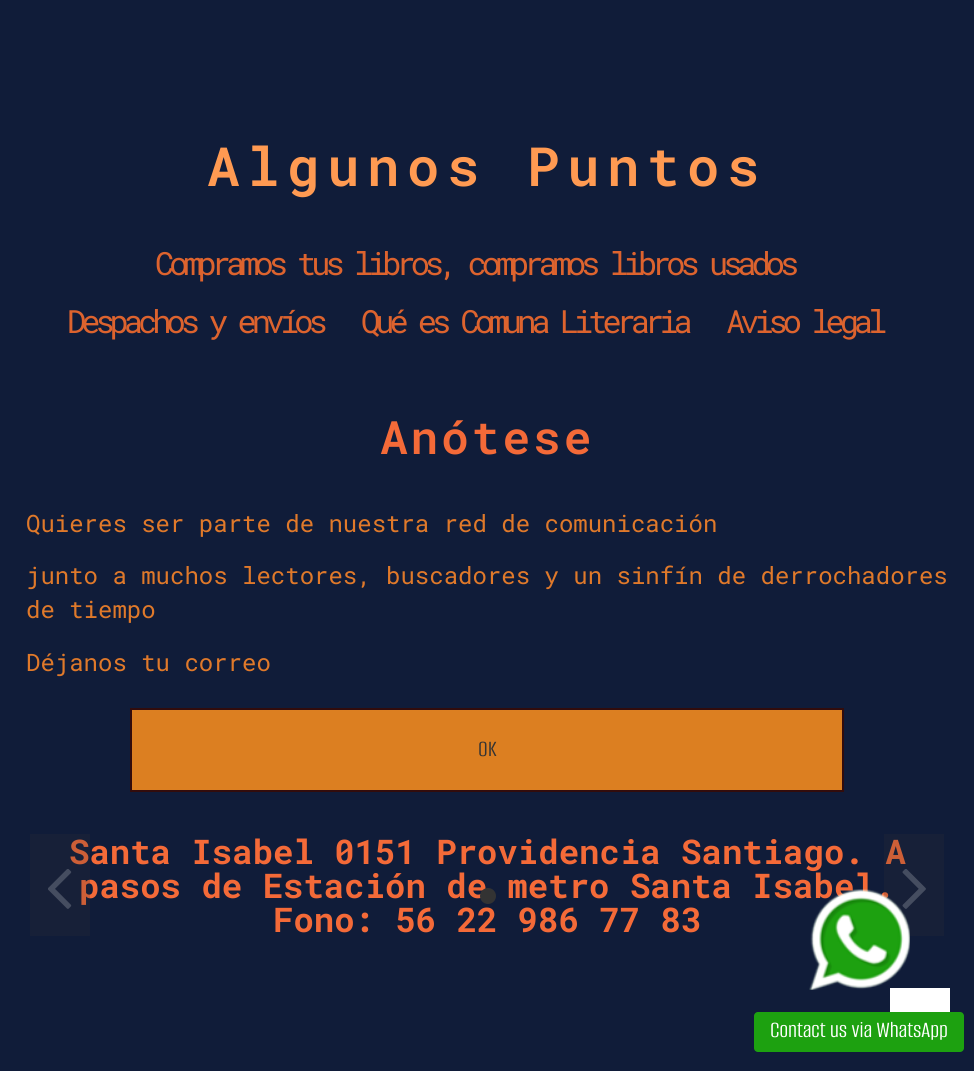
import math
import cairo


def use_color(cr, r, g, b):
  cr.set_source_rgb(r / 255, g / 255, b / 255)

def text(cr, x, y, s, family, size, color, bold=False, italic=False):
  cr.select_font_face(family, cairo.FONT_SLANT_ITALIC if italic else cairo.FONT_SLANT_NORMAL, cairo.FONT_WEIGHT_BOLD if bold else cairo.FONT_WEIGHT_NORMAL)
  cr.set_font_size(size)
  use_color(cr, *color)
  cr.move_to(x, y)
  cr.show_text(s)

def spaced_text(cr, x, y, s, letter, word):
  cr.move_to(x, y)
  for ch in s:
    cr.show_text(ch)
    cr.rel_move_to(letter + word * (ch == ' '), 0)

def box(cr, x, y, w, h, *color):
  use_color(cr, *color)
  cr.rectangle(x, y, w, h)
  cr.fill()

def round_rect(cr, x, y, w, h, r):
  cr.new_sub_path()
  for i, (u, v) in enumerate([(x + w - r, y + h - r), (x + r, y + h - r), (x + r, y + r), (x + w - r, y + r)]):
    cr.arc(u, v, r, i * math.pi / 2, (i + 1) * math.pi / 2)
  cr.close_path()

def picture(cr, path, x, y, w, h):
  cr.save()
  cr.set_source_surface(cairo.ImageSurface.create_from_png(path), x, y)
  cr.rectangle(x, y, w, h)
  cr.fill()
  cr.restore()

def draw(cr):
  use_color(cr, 16, 28, 57)
  cr.paint()
  use_color(cr, 220, 127, 33)
  cr.rectangle(131, 709, 712, 82)
  cr.fill_preserve()
  use_color(cr, 50, 12, 12)
  cr.stroke()
  use_color(cr, 29, 161, 16)
  round_rect(cr, 754, 1012, 210, 40, 4)
  cr.fill()
  box(cr, 890, 988, 60, 24, 255, 255, 255)
  cr.select_font_face("Roboto Mono SemiBold")
  cr.set_font_size(54)
  use_color(cr, 255, 154, 82)
  spaced_text(cr, 207, 186, "Algunos Puntos", 7.6, 0)
  cr.select_font_face("Roboto Mono")
  cr.set_font_size(32)
  use_color(cr, 221, 99, 46)
  spaced_text(cr, 155, 275, "Compramos tus libros, compramos libros usados", -5, 0)
  spaced_text(cr, 67, 333, "Despachos y envíos", -5, 0)
  spaced_text(cr, 361, 333, "Qué es Comuna Literaria", -5, 0)
  spaced_text(cr, 726, 333, "Aviso legal", -5, 0)
  cr.select_font_face("Roboto Mono SemiBold")
  cr.set_font_size(46)
  use_color(cr, 244, 106, 56)
  spaced_text(cr, 380, 454, "Anótese", 3, 0)
  text(cr, 26, 532, "Quieres ser parte de nuestra red de comunicación", "Roboto Mono", 24, (224, 121, 42))
  text(cr, 26, 584, "junto a muchos lectores, buscadores y un sinfín de derrochadores", "Roboto Mono", 24, (224, 121, 42))
  text(cr, 26, 618, "de tiempo", "Roboto Mono", 24, (224, 121, 42))
  text(cr, 26, 671, "Déjanos tu correo", "Roboto Mono", 24, (224, 121, 42))
  text(cr, 478, 756, "OK", "Alumni Sans", 24, (51, 51, 51))
  text(cr, 69, 864, "Santa Isabel 0151 Providencia Santiago. A", "Roboto Mono", 34, (244, 106, 56), bold=True)
  text(cr, 79, 898, "pasos de Estación de metro Santa Isabel.", "Roboto Mono", 34, (244, 106, 56), bold=True)
  cr.set_source_rgba(0.2, 0.2, 0.2, 0.2)
  cr.rectangle(30, 834, 60, 102)
  cr.fill()
  picture(cr, "img_01.png", 48, 869, 24, 40)
  text(cr, 273, 932, "Fono: 56 22 986 77 83", "Roboto Mono", 34, (244, 106, 56), bold=True)
  cr.set_source_rgba(0.2, 0.2, 0.2, 0.2)
  cr.rectangle(884, 834, 60, 102)
  cr.fill()
  picture(cr, "img_02.png", 902, 869, 24, 40)
  use_color(cr, 51, 51, 51)
  cr.arc(488, 896, 8, 0, 2 * math.pi)
  cr.fill()
  picture(cr, "img_03.png", 809, 889, 101, 101)
  text(cr, 770, 1037, "Contact us via WhatsApp", "Alumni Sans", 24, (255, 255, 255))


surface = cairo.ImageSurface(cairo.FORMAT_RGB24, 974, 1071)
cr = cairo.Context(surface)
options = cairo.FontOptions()
options.set_hint_metrics(cairo.HINT_METRICS_OFF)
options.set_hint_style(cairo.HINT_STYLE_NONE)
cr.set_font_options(options)
cr.set_miter_limit(4)
draw(cr)
surface.write_to_png("out.png")
